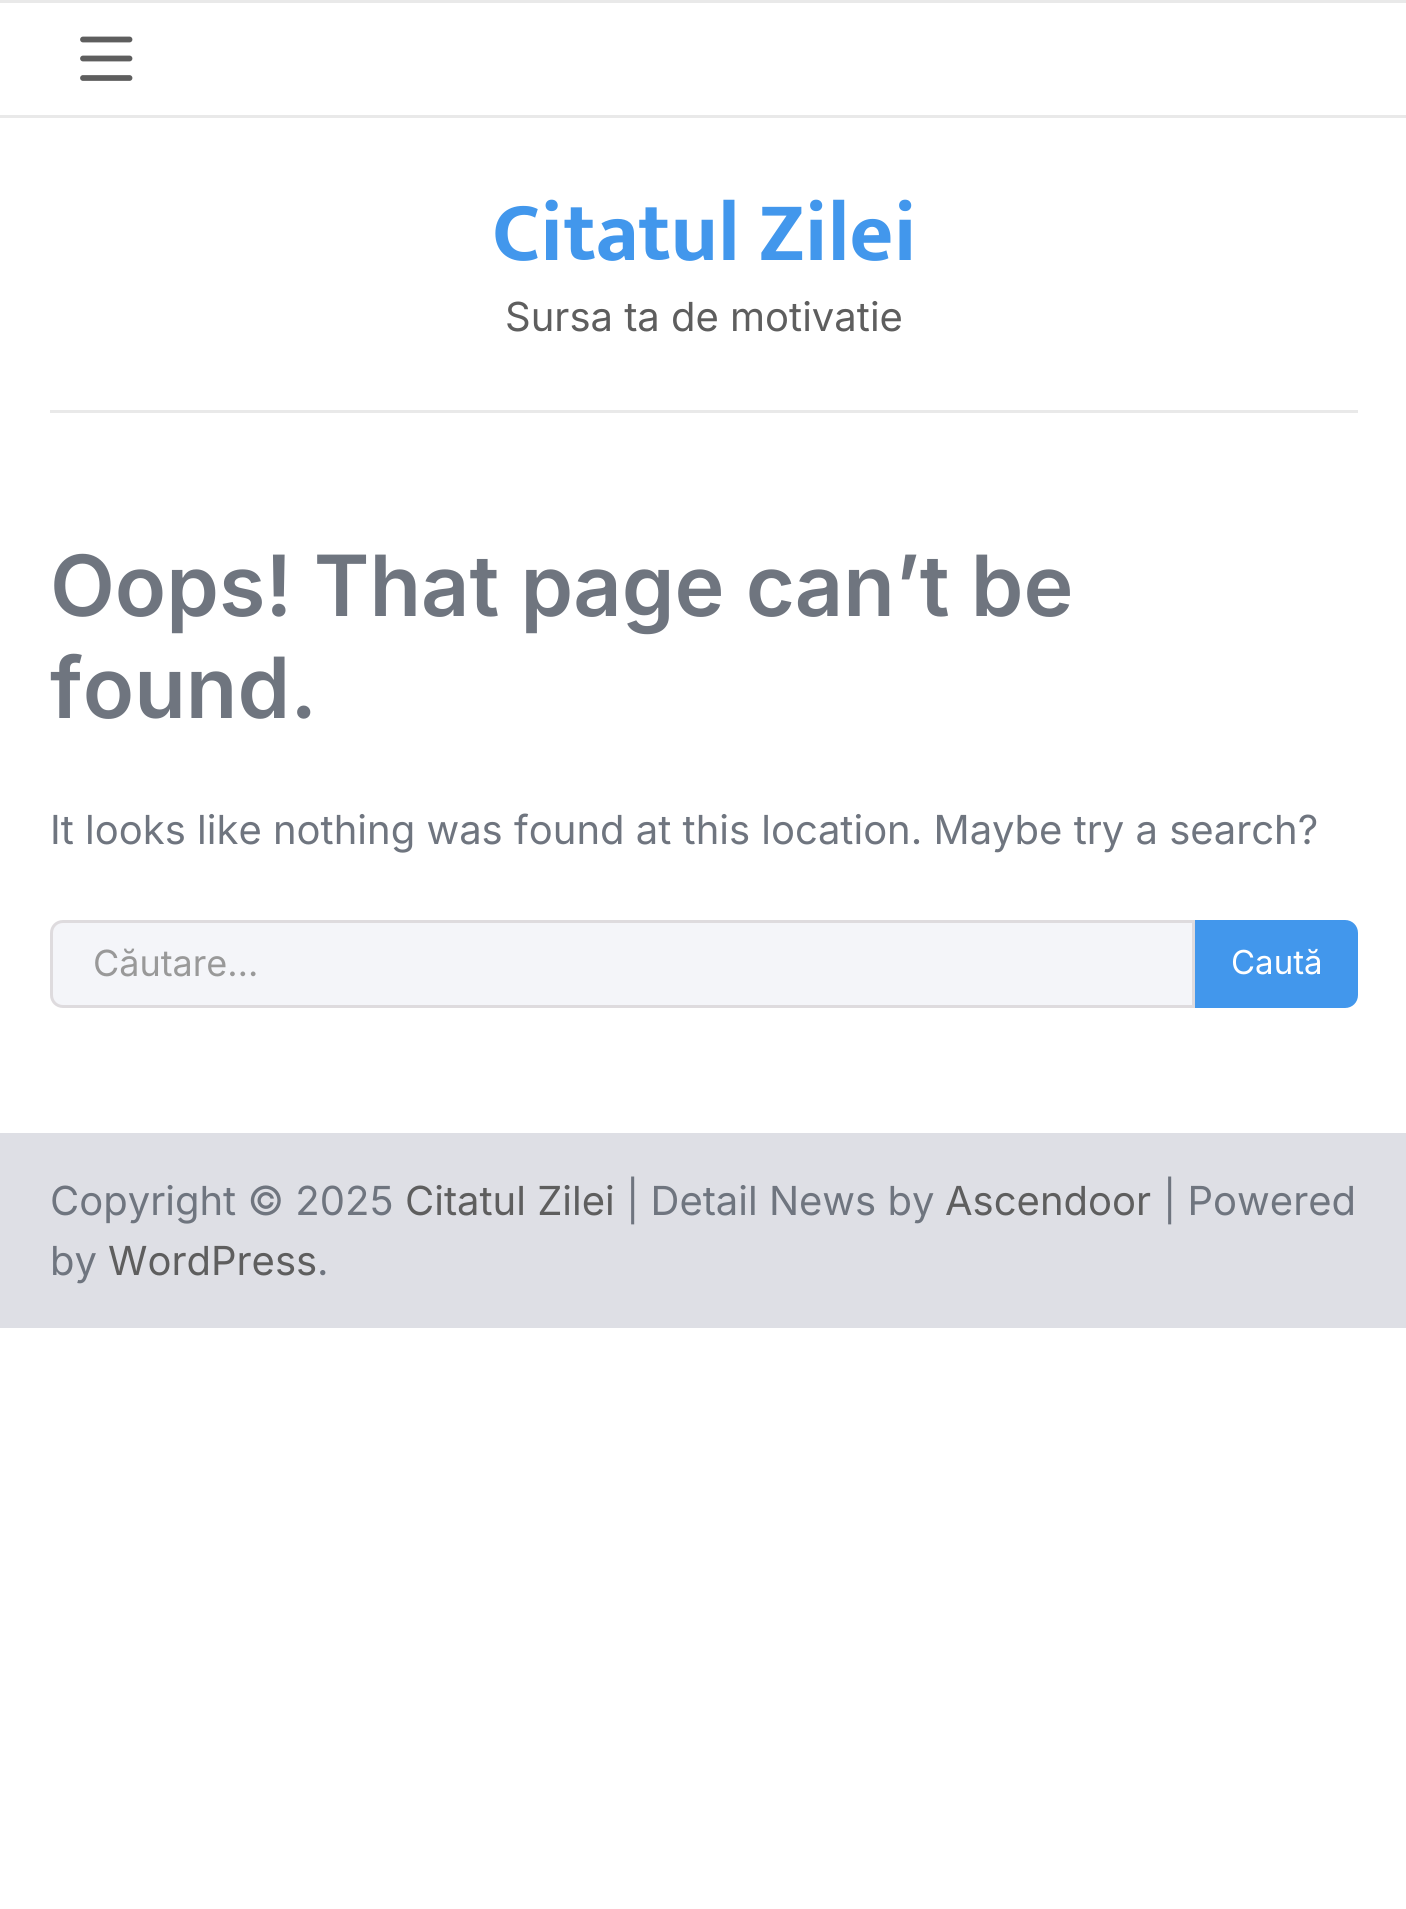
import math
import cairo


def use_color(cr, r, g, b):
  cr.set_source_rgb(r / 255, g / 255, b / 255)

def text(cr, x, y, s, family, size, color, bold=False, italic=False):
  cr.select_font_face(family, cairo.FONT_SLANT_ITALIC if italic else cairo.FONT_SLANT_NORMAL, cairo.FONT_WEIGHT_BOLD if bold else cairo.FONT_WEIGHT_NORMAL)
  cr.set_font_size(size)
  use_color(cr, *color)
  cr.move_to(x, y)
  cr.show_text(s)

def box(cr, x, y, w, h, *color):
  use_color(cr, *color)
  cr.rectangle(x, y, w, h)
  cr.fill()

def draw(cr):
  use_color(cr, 255, 255, 255)
  cr.paint()
  box(cr, 0, 0, 1406, 3, 233, 233, 233)
  box(cr, 0, 115, 1406, 3, 233, 233, 233)
  cr.new_path()
  cr.move_to(83, 39.5)
  cr.line_to(129.5, 39.5)
  cr.move_to(83, 58.5)
  cr.line_to(129.5, 58.5)
  cr.move_to(83, 78)
  cr.line_to(129.5, 78)
  use_color(cr, 94, 94, 94)
  cr.set_line_width(5.8)
  cr.set_line_cap(cairo.LINE_CAP_ROUND)
  cr.set_line_join(cairo.LINE_JOIN_ROUND)
  cr.stroke()
  box(cr, 50, 410, 1308, 3, 233, 233, 233)
  use_color(cr, 244, 245, 249)
  cr.new_path()
  cr.move_to(63, 921.5)
  cr.line_to(1193.5, 921.5)
  cr.line_to(1193.5, 1006.5)
  cr.line_to(63, 1006.5)
  cr.curve_to(56.5, 1006.5, 51.5, 1001.5, 51.5, 995)
  cr.line_to(51.5, 933)
  cr.curve_to(51.5, 926.5, 56.5, 921.5, 63, 921.5)
  cr.close_path()
  cr.fill_preserve()
  use_color(cr, 222, 219, 222)
  cr.set_line_width(3)
  cr.set_line_cap(cairo.LINE_CAP_BUTT)
  cr.set_line_join(cairo.LINE_JOIN_MITER)
  cr.stroke()
  use_color(cr, 66, 151, 236)
  cr.new_path()
  cr.move_to(1196.5, 921.5)
  cr.line_to(1345, 921.5)
  cr.curve_to(1351.5, 921.5, 1356.5, 926.5, 1356.5, 933)
  cr.line_to(1356.5, 995)
  cr.curve_to(1356.5, 1001.5, 1351.5, 1006.5, 1345, 1006.5)
  cr.line_to(1196.5, 1006.5)
  cr.close_path()
  cr.fill_preserve()
  cr.stroke()
  box(cr, 0, 1133, 1406, 195, 222, 223, 229)
  text(cr, 492, 260, "Citatul Zilei", "Mukta", 84.4, (66, 151, 236), bold=True)
  text(cr, 505, 331, "Sursa ta de motivatie", "Inter", 40, (94, 94, 94))
  text(cr, 50, 616, "Oops! That page can’t be", "Inter SemiBold", 84.4, (111, 117, 127))
  text(cr, 50, 718, "found.", "Inter SemiBold", 84.4, (111, 117, 127))
  text(cr, 50, 844, "It looks like nothing was found at this location. Maybe try a search?", "Inter", 40, (111, 117, 127))
  text(cr, 93, 976, "Căutare…", "Inter", 36, (153, 153, 153))
  text(cr, 1231, 974, "Caută", "Inter", 33, (255, 255, 255))
  text(cr, 50, 1215, "Copyright © 2025", "Inter", 40, (111, 117, 127))
  text(cr, 405, 1215, "Citatul Zilei", "Inter", 40, (94, 94, 94))
  text(cr, 626, 1215, "| Detail News by", "Inter", 40, (111, 117, 127))
  text(cr, 945, 1215, "Ascendoor", "Inter", 40, (94, 94, 94))
  text(cr, 1163, 1215, "| Powered", "Inter", 40, (111, 117, 127))
  text(cr, 50, 1275, "by", "Inter", 40, (111, 117, 127))
  text(cr, 108, 1275, "WordPress", "Inter", 40, (94, 94, 94))
  text(cr, 317, 1275, ".", "Inter", 40, (111, 117, 127))


surface = cairo.ImageSurface(cairo.FORMAT_RGB24, 1406, 1909)
cr = cairo.Context(surface)
options = cairo.FontOptions()
options.set_hint_metrics(cairo.HINT_METRICS_OFF)
options.set_hint_style(cairo.HINT_STYLE_NONE)
cr.set_font_options(options)
cr.set_miter_limit(4)
draw(cr)
surface.write_to_png("out.png")
